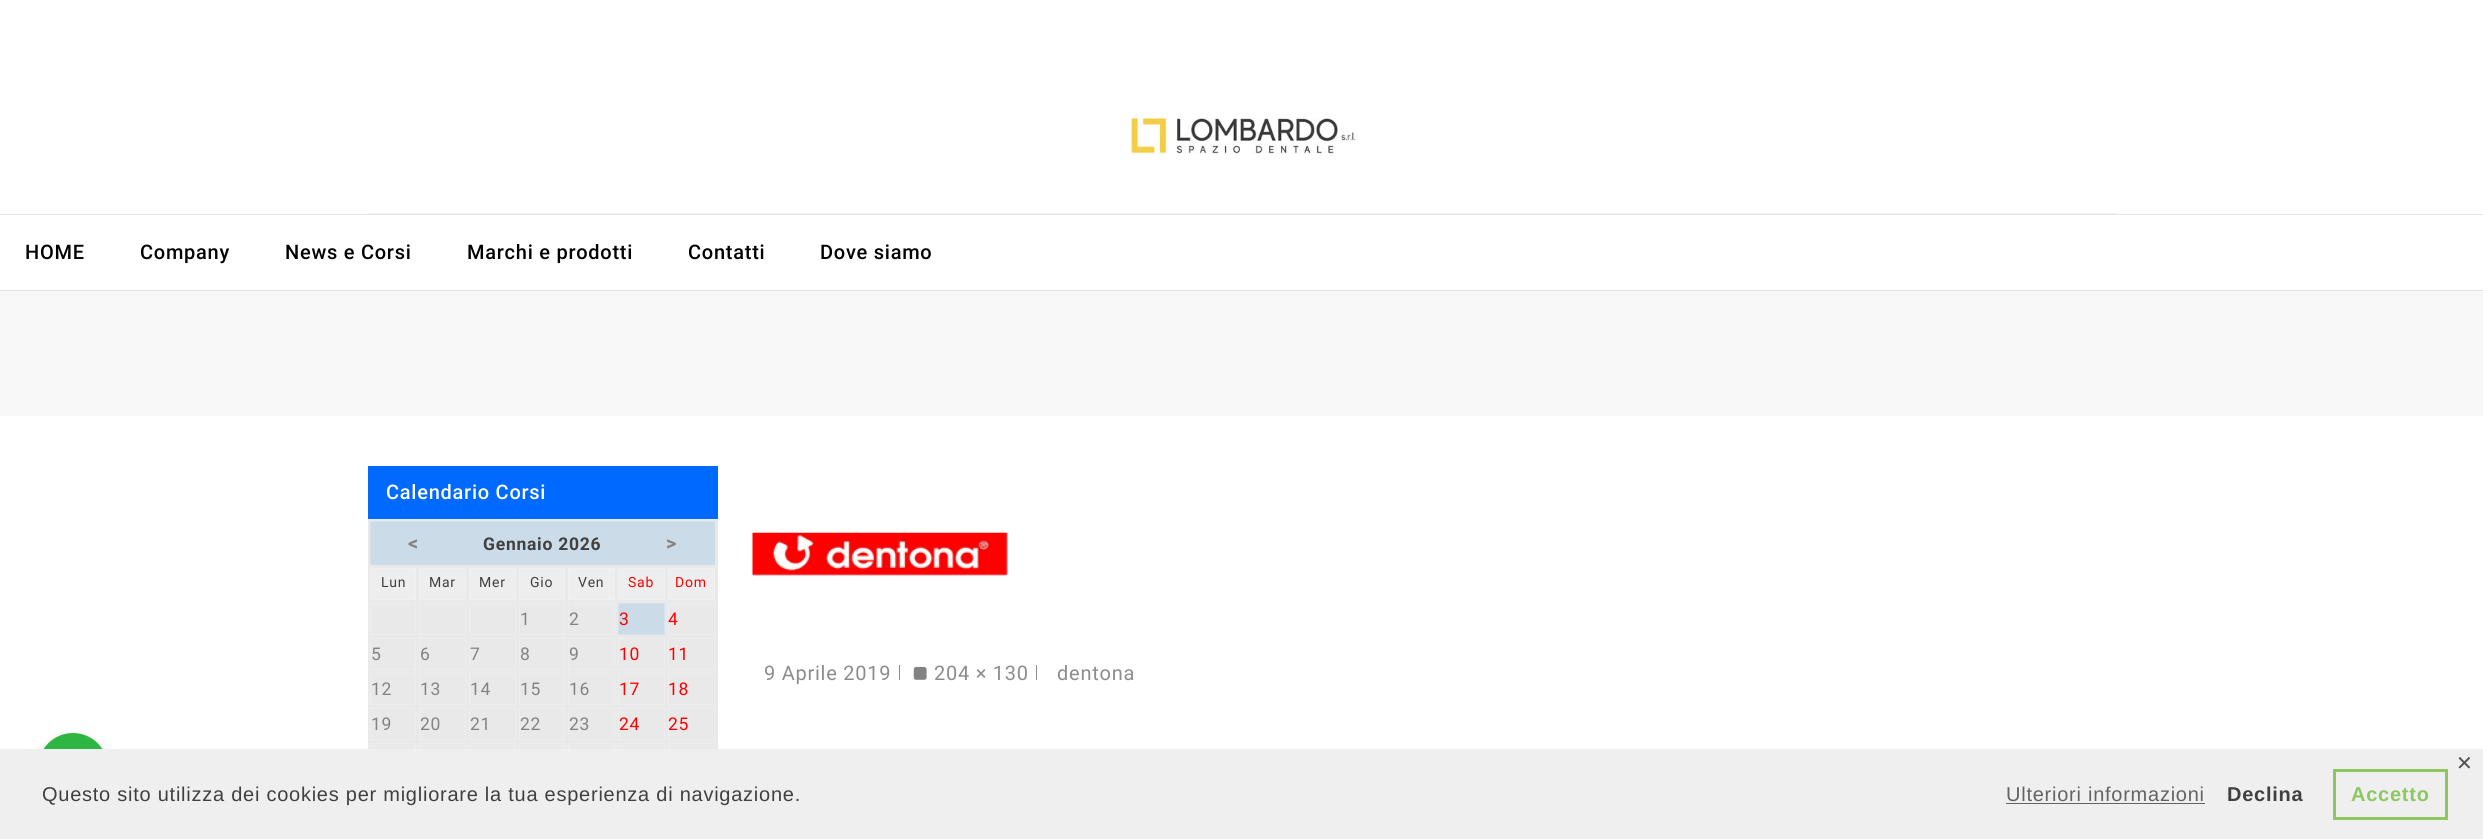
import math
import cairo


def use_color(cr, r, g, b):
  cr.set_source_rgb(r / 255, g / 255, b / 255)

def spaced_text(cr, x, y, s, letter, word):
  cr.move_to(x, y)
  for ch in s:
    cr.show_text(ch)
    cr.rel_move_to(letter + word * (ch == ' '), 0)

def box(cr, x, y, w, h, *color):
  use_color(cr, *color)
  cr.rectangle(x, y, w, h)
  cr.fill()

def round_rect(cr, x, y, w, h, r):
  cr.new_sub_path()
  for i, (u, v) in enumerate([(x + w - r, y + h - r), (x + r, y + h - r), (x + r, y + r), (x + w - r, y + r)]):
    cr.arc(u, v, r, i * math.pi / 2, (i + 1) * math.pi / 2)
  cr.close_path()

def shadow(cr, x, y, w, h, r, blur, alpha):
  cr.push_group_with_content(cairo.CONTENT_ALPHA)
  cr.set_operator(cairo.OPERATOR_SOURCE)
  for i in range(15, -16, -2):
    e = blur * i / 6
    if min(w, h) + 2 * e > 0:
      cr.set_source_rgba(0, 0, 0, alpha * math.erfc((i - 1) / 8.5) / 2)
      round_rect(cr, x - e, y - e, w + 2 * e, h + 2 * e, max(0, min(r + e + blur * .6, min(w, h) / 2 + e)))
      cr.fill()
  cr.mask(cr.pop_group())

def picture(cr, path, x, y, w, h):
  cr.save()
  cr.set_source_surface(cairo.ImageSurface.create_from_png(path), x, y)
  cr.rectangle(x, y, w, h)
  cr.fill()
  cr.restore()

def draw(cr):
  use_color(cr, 255, 255, 255)
  cr.paint()
  box(cr, 0, 214, 2483, 1, 229, 229, 229)
  box(cr, 368, 213, 1750, 1, 242, 242, 242)
  picture(cr, "img_01.png", 1127, 118, 231, 36)
  box(cr, 0, 290, 2483, 1, 229, 229, 229)
  box(cr, 0, 291, 2483, 125, 248, 248, 248)
  box(cr, 368, 519, 350, 230, 233, 233, 233)
  box(cr, 368, 466, 350, 53, 0, 105, 255)
  box(cr, 370, 521, 345, 44, 204, 219, 232)
  use_color(cr, 214, 226, 237)
  cr.new_path()
  cr.move_to(370, 521)
  cr.line_to(715, 521)
  cr.line_to(715, 522)
  cr.line_to(371, 522)
  cr.close_path()
  cr.fill()
  cr.set_source_rgba(1, 1, 1, 0.2)
  cr.new_path()
  cr.move_to(370, 565)
  cr.line_to(370, 521)
  cr.line_to(371, 522)
  cr.line_to(371, 565)
  cr.close_path()
  cr.fill()
  use_color(cr, 238, 238, 238)
  cr.rectangle(370.5, 568.5, 45, 31)
  cr.fill_preserve()
  use_color(cr, 241, 241, 241)
  cr.set_line_width(1)
  cr.stroke()
  use_color(cr, 238, 238, 238)
  cr.rectangle(419.5, 568.5, 46, 31)
  cr.fill_preserve()
  use_color(cr, 241, 241, 241)
  cr.stroke()
  use_color(cr, 238, 238, 238)
  cr.rectangle(469.5, 568.5, 46, 31)
  cr.fill_preserve()
  use_color(cr, 241, 241, 241)
  cr.stroke()
  use_color(cr, 238, 238, 238)
  cr.rectangle(519.5, 568.5, 45, 31)
  cr.fill_preserve()
  use_color(cr, 241, 241, 241)
  cr.stroke()
  use_color(cr, 238, 238, 238)
  cr.rectangle(568.5, 568.5, 46, 31)
  cr.fill_preserve()
  use_color(cr, 241, 241, 241)
  cr.stroke()
  use_color(cr, 238, 238, 238)
  cr.rectangle(618.5, 568.5, 46, 31)
  cr.fill_preserve()
  use_color(cr, 241, 241, 241)
  cr.stroke()
  use_color(cr, 238, 238, 238)
  cr.rectangle(668.5, 568.5, 46, 31)
  cr.fill_preserve()
  use_color(cr, 241, 241, 241)
  cr.stroke()
  cr.rectangle(370.5, 603.5, 45, 31)
  use_color(cr, 237, 237, 237)
  cr.stroke()
  cr.rectangle(419.5, 603.5, 46, 31)
  cr.stroke()
  cr.rectangle(469.5, 603.5, 46, 31)
  cr.stroke()
  cr.rectangle(519.5, 603.5, 45, 31)
  cr.stroke()
  cr.rectangle(568.5, 603.5, 46, 31)
  cr.stroke()
  use_color(cr, 204, 219, 232)
  cr.rectangle(618.5, 603.5, 46, 31)
  cr.fill_preserve()
  use_color(cr, 214, 226, 237)
  cr.stroke()
  cr.rectangle(668.5, 603.5, 46, 31)
  use_color(cr, 237, 237, 237)
  cr.stroke()
  cr.rectangle(370.5, 638.5, 45, 31)
  cr.stroke()
  cr.rectangle(419.5, 638.5, 46, 31)
  cr.stroke()
  cr.rectangle(469.5, 638.5, 46, 31)
  cr.stroke()
  cr.rectangle(519.5, 638.5, 45, 31)
  cr.stroke()
  cr.rectangle(568.5, 638.5, 46, 31)
  cr.stroke()
  cr.rectangle(618.5, 638.5, 46, 31)
  cr.stroke()
  cr.rectangle(668.5, 638.5, 46, 31)
  cr.stroke()
  cr.rectangle(370.5, 673.5, 45, 31)
  cr.stroke()
  cr.rectangle(419.5, 673.5, 46, 31)
  cr.stroke()
  cr.rectangle(469.5, 673.5, 46, 31)
  cr.stroke()
  cr.rectangle(519.5, 673.5, 45, 31)
  cr.stroke()
  cr.rectangle(568.5, 673.5, 46, 31)
  cr.stroke()
  cr.rectangle(618.5, 673.5, 46, 31)
  cr.stroke()
  cr.rectangle(668.5, 673.5, 46, 31)
  cr.stroke()
  cr.rectangle(370.5, 708.5, 45, 31)
  cr.stroke()
  cr.rectangle(419.5, 708.5, 46, 31)
  cr.stroke()
  cr.rectangle(469.5, 708.5, 46, 31)
  cr.stroke()
  cr.rectangle(519.5, 708.5, 45, 31)
  cr.stroke()
  cr.rectangle(568.5, 708.5, 46, 31)
  cr.stroke()
  cr.rectangle(618.5, 708.5, 46, 31)
  cr.stroke()
  cr.rectangle(668.5, 708.5, 46, 31)
  cr.stroke()
  cr.rectangle(370.5, 743.5, 45, 31)
  cr.stroke()
  cr.rectangle(419.5, 743.5, 46, 31)
  cr.stroke()
  cr.rectangle(469.5, 743.5, 46, 31)
  cr.stroke()
  cr.rectangle(519.5, 743.5, 45, 31)
  cr.stroke()
  cr.rectangle(568.5, 743.5, 46, 31)
  cr.stroke()
  cr.rectangle(618.5, 743.5, 46, 31)
  cr.stroke()
  cr.rectangle(668.5, 743.5, 46, 31)
  cr.stroke()
  picture(cr, "img_02.png", 752, 532, 256, 44)
  box(cr, 899, 665, 1, 15, 140, 140, 140)
  picture(cr, "img_03.png", 913, 666, 14, 14)
  box(cr, 1036, 665, 1, 15, 140, 140, 140)
  use_color(cr, 0, 0, 0)
  shadow(cr, 35, 738, 75, 75, 37.5, 5, 0.14)
  use_color(cr, 45, 183, 66)
  cr.arc(73, 768, 35, 0, 2 * math.pi)
  cr.fill()
  box(cr, 0, 749, 2483, 90, 239, 239, 239)
  box(cr, 2006, 803, 199, 1, 99, 99, 99)
  cr.rectangle(2334.5, 770.5, 112, 48)
  use_color(cr, 142, 199, 96)
  cr.set_line_width(3)
  cr.stroke()
  cr.select_font_face("Roboto Medium")
  cr.set_font_size(20)
  use_color(cr, 0, 0, 0)
  spaced_text(cr, 25, 259, "HOME", 0.75, 0)
  spaced_text(cr, 140, 259, "Company", 0.75, 0)
  spaced_text(cr, 285, 259, "News e Corsi", 0.75, 0)
  spaced_text(cr, 467, 259, "Marchi e prodotti", 0.75, 0)
  spaced_text(cr, 688, 259, "Contatti", 0.75, 0)
  spaced_text(cr, 820, 259, "Dove siamo", 0.75, 0)
  use_color(cr, 255, 255, 255)
  spaced_text(cr, 386, 499, "Calendario Corsi", 0.75, 0)
  cr.select_font_face("Roboto", cairo.FONT_SLANT_NORMAL, cairo.FONT_WEIGHT_BOLD)
  use_color(cr, 131, 131, 131)
  spaced_text(cr, 408, 550, "<", 0.75, 0)
  cr.set_font_size(17.5)
  use_color(cr, 64, 64, 64)
  spaced_text(cr, 483, 550, "Gennaio 2026", 0.75, 0)
  cr.set_font_size(20)
  use_color(cr, 131, 131, 131)
  spaced_text(cr, 666, 550, ">", 0.75, 0)
  cr.select_font_face("Roboto")
  cr.set_font_size(14)
  use_color(cr, 64, 64, 64)
  spaced_text(cr, 381, 587, "Lun", 0.75, 0)
  spaced_text(cr, 429, 587, "Mar", 0.75, 0)
  spaced_text(cr, 479, 587, "Mer", 0.75, 0)
  spaced_text(cr, 530, 587, "Gio", 0.75, 0)
  spaced_text(cr, 578, 587, "Ven", 0.75, 0)
  use_color(cr, 255, 0, 0)
  spaced_text(cr, 628, 587, "Sab", 0.75, 0)
  spaced_text(cr, 675, 587, "Dom", 0.75, 0)
  cr.set_font_size(17.5)
  use_color(cr, 131, 131, 131)
  spaced_text(cr, 520, 625, "1", 0.75, 0)
  spaced_text(cr, 569, 625, "2", 0.75, 0)
  use_color(cr, 255, 0, 0)
  spaced_text(cr, 619, 625, "3", 0.75, 0)
  spaced_text(cr, 668, 625, "4", 0.75, 0)
  use_color(cr, 131, 131, 131)
  spaced_text(cr, 371, 660, "5", 0.75, 0)
  spaced_text(cr, 420, 660, "6", 0.75, 0)
  spaced_text(cr, 470, 660, "7", 0.75, 0)
  spaced_text(cr, 520, 660, "8", 0.75, 0)
  spaced_text(cr, 569, 660, "9", 0.75, 0)
  use_color(cr, 255, 0, 0)
  spaced_text(cr, 619, 660, "10", 0.75, 0)
  spaced_text(cr, 668, 660, "11", 0.75, 0)
  use_color(cr, 131, 131, 131)
  spaced_text(cr, 371, 695, "12", 0.75, 0)
  spaced_text(cr, 420, 695, "13", 0.75, 0)
  spaced_text(cr, 470, 695, "14", 0.75, 0)
  spaced_text(cr, 520, 695, "15", 0.75, 0)
  spaced_text(cr, 569, 695, "16", 0.75, 0)
  use_color(cr, 255, 0, 0)
  spaced_text(cr, 619, 695, "17", 0.75, 0)
  spaced_text(cr, 668, 695, "18", 0.75, 0)
  use_color(cr, 131, 131, 131)
  spaced_text(cr, 371, 730, "19", 0.75, 0)
  spaced_text(cr, 420, 730, "20", 0.75, 0)
  spaced_text(cr, 470, 730, "21", 0.75, 0)
  spaced_text(cr, 520, 730, "22", 0.75, 0)
  spaced_text(cr, 569, 730, "23", 0.75, 0)
  use_color(cr, 255, 0, 0)
  spaced_text(cr, 619, 730, "24", 0.75, 0)
  spaced_text(cr, 668, 730, "25", 0.75, 0)
  cr.set_font_size(20)
  use_color(cr, 140, 140, 140)
  spaced_text(cr, 764, 680, "9 Aprile 2019", 0.75, 0)
  spaced_text(cr, 934, 680, "204 × 130", 0.75, 0)
  spaced_text(cr, 1057, 680, "dentona", 0.75, 0)
  cr.select_font_face("DejaVu Sans")
  use_color(cr, 82, 82, 82)
  spaced_text(cr, 2456, 770, "✕", 0.75, 0)
  cr.select_font_face("Liberation Sans")
  use_color(cr, 64, 64, 64)
  spaced_text(cr, 42, 801, "Questo sito utilizza dei cookies per migliorare la tua esperienza di navigazione.", 0.75, 0)
  use_color(cr, 99, 99, 99)
  spaced_text(cr, 2006, 801, "Ulteriori informazioni", 0.75, 0)
  cr.select_font_face("Liberation Sans", cairo.FONT_SLANT_NORMAL, cairo.FONT_WEIGHT_BOLD)
  use_color(cr, 64, 64, 64)
  spaced_text(cr, 2227, 801, "Declina", 0.75, 0)
  use_color(cr, 142, 199, 96)
  spaced_text(cr, 2351, 801, "Accetto", 0.75, 0)


surface = cairo.ImageSurface(cairo.FORMAT_RGB24, 2483, 839)
cr = cairo.Context(surface)
options = cairo.FontOptions()
options.set_hint_metrics(cairo.HINT_METRICS_OFF)
options.set_hint_style(cairo.HINT_STYLE_NONE)
cr.set_font_options(options)
cr.set_miter_limit(4)
draw(cr)
surface.write_to_png("out.png")
